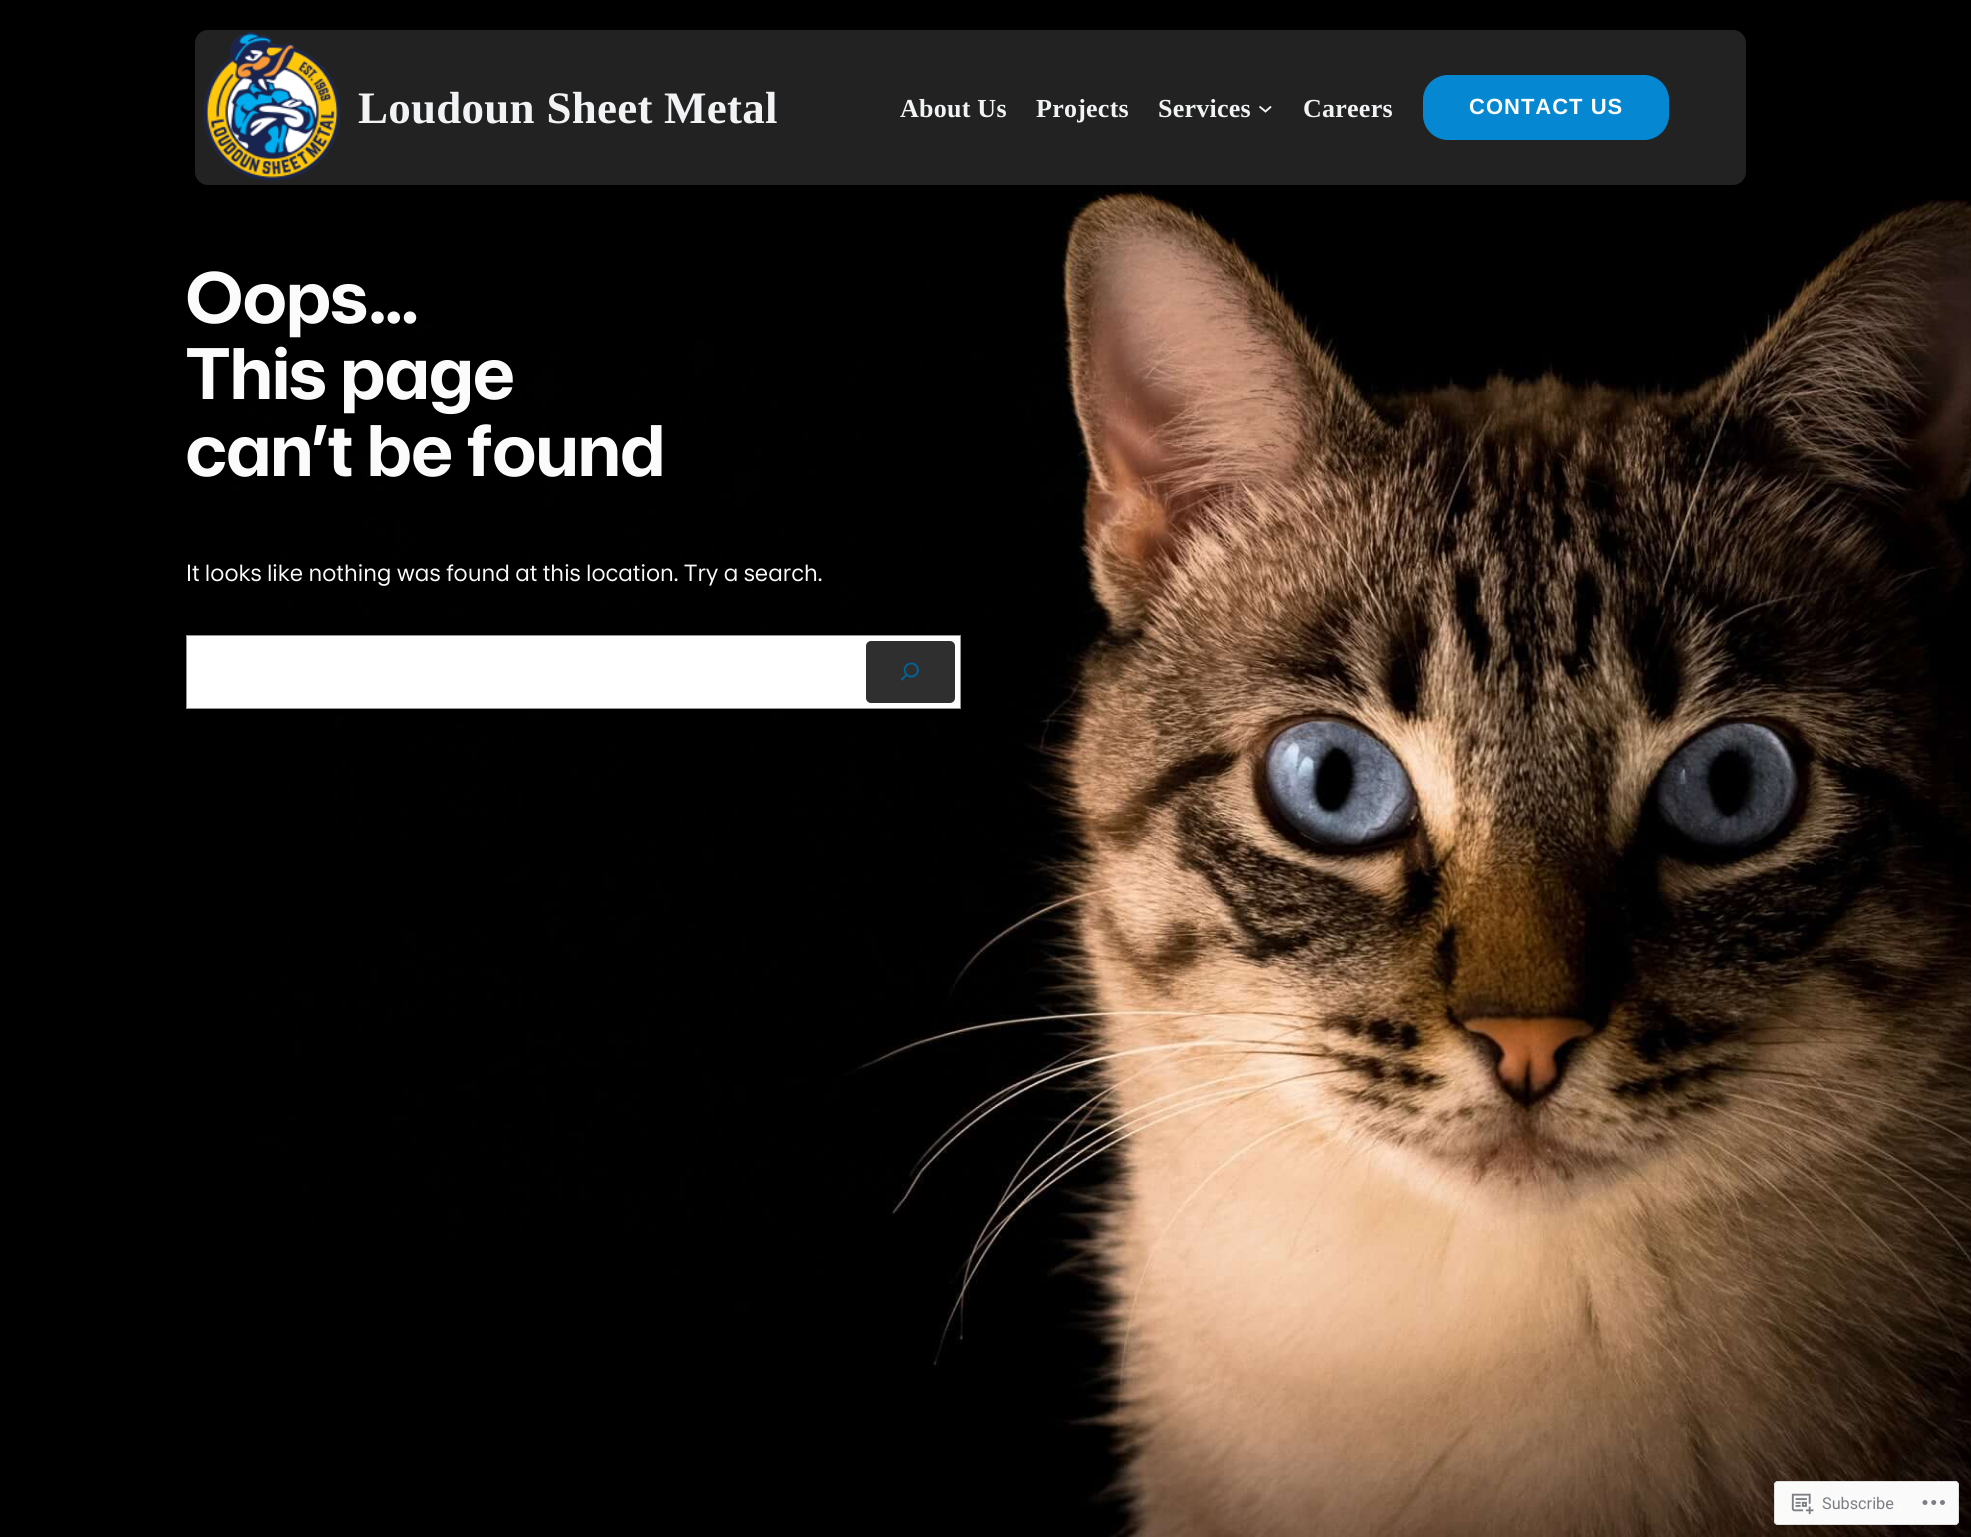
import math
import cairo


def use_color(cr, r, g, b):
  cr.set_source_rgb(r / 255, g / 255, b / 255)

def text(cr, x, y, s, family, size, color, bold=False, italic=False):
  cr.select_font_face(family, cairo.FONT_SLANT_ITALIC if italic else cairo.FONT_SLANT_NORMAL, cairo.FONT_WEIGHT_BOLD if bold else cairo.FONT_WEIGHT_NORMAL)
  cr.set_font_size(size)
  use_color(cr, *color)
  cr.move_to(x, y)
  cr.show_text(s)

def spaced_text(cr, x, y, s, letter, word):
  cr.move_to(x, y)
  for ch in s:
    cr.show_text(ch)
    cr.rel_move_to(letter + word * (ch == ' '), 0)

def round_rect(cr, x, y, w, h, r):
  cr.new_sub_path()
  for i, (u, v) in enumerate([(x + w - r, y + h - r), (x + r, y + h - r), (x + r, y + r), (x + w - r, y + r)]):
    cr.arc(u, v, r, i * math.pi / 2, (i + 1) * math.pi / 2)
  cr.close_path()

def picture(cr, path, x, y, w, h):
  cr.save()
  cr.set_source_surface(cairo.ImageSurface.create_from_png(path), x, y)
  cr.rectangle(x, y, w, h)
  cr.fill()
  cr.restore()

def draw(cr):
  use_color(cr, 255, 255, 255)
  cr.paint()
  picture(cr, "img_01.png", 0, 0, 1971, 1537)
  use_color(cr, 34, 34, 34)
  round_rect(cr, 195, 30, 1551, 155, 13)
  cr.fill()
  picture(cr, "img_02.png", 203, 32, 138, 149)
  cr.new_path()
  cr.move_to(1259.5, 106.5)
  cr.line_to(1265.5, 111.5)
  cr.line_to(1271, 106.5)
  use_color(cr, 241, 243, 244)
  cr.set_line_width(1.9)
  cr.stroke()
  use_color(cr, 6, 135, 210)
  round_rect(cr, 1423.5, 75.5, 245, 64, 24.5)
  cr.fill_preserve()
  cr.set_line_width(1)
  cr.stroke()
  use_color(cr, 255, 255, 255)
  cr.rectangle(186.5, 635.5, 774, 73)
  cr.fill_preserve()
  use_color(cr, 148, 148, 148)
  cr.stroke()
  use_color(cr, 47, 47, 47)
  round_rect(cr, 866, 641, 89, 62, 5)
  cr.fill()
  picture(cr, "img_03.png", 900, 662, 19, 19)
  cr.set_source_rgba(1, 1, 1, 0.98)
  round_rect(cr, 1774, 1481, 185, 44, 4)
  cr.fill()
  round_rect(cr, 1774.5, 1481.5, 184, 43, 3.5)
  cr.set_source_rgba(0.863, 0.863, 0.871, 0.98)
  cr.stroke()
  picture(cr, "img_04.png", 1791, 1493, 23, 22)
  picture(cr, "img_05.png", 1922, 1500, 23, 5)
  cr.select_font_face("Liberation Serif", cairo.FONT_SLANT_NORMAL, cairo.FONT_WEIGHT_BOLD)
  cr.set_font_size(45)
  use_color(cr, 241, 243, 244)
  spaced_text(cr, 358, 123, "Loudoun Sheet Metal", 0.25, 0)
  cr.set_font_size(26)
  spaced_text(cr, 900, 117, "About Us", 0.25, 0)
  spaced_text(cr, 1036, 117, "Projects", 0.25, 0)
  spaced_text(cr, 1158, 117, "Services", 0.25, 0)
  spaced_text(cr, 1303, 117, "Careers", 0.25, 0)
  cr.select_font_face("Liberation Sans", cairo.FONT_SLANT_NORMAL, cairo.FONT_WEIGHT_BOLD)
  cr.set_font_size(22)
  use_color(cr, 251, 251, 251)
  spaced_text(cr, 1469, 114, "CONTACT US", 1, 0)
  cr.select_font_face("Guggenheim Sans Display", cairo.FONT_SLANT_NORMAL, cairo.FONT_WEIGHT_BOLD)
  cr.set_font_size(70)
  spaced_text(cr, 186, 323, "Oops…", 0.5, 0)
  spaced_text(cr, 186, 399, "This page", 0.5, 0)
  spaced_text(cr, 186, 476, "can’t be found", 0.5, 0)
  text(cr, 186, 581, "It looks like nothing was found at this location. Try a search.", "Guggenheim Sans", 22.5, (251, 251, 251))
  text(cr, 1822, 1509, "Subscribe", "Roboto", 16.25, (123, 127, 132))


surface = cairo.ImageSurface(cairo.FORMAT_RGB24, 1971, 1537)
cr = cairo.Context(surface)
options = cairo.FontOptions()
options.set_hint_metrics(cairo.HINT_METRICS_OFF)
options.set_hint_style(cairo.HINT_STYLE_NONE)
cr.set_font_options(options)
cr.set_miter_limit(4)
draw(cr)
surface.write_to_png("out.png")
